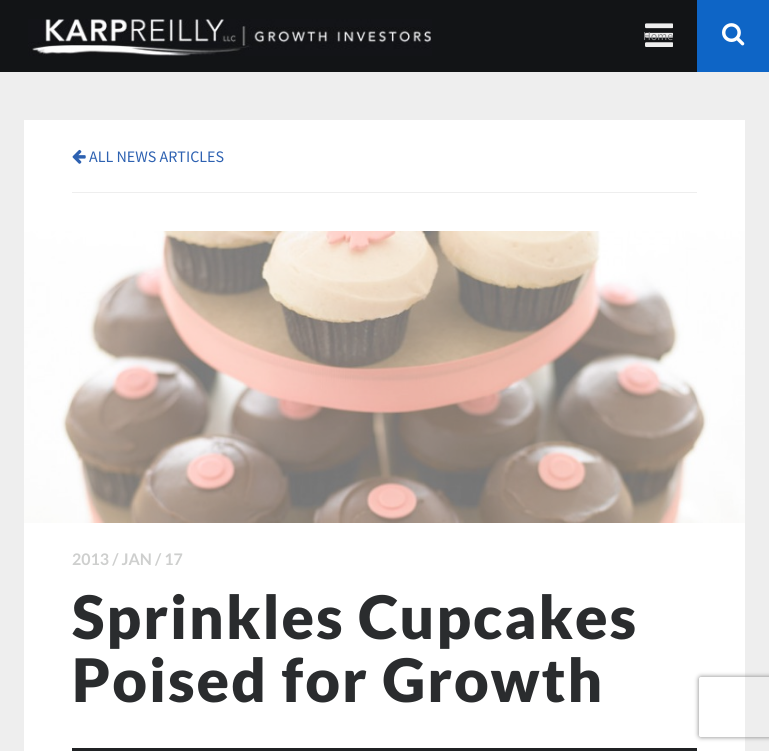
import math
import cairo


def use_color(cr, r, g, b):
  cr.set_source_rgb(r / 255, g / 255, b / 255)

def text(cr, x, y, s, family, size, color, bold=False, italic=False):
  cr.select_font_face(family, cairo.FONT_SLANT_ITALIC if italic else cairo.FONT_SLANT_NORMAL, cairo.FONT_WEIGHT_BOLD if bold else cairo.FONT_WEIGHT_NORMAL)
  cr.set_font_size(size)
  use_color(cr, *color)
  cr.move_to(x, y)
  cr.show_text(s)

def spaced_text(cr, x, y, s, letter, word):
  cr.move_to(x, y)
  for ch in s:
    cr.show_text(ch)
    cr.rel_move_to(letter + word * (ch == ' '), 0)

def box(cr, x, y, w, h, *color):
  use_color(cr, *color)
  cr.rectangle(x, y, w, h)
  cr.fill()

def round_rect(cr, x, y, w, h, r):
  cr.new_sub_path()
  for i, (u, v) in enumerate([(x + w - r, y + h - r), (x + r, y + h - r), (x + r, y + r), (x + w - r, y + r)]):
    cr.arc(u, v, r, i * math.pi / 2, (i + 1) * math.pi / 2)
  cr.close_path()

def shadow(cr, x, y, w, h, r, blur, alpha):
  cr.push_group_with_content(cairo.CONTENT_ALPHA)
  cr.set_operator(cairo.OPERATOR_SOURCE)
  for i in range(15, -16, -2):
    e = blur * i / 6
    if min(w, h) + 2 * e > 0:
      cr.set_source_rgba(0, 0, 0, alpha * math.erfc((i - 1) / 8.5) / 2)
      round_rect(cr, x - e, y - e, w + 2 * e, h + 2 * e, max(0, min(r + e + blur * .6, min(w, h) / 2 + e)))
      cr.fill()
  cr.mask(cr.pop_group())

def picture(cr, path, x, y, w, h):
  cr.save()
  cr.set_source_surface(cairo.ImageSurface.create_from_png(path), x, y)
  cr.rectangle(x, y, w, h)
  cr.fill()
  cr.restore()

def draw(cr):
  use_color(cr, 238, 238, 238)
  cr.paint()
  box(cr, 0, 0, 697, 72, 18, 20, 22)
  picture(cr, "img_01.png", 28, 19, 404, 37)
  picture(cr, "img_02.png", 645, 23, 28, 24)
  box(cr, 697, 0, 72, 72, 14, 101, 198)
  picture(cr, "img_03.png", 722, 23, 23, 23)
  box(cr, 24, 120, 721, 631, 255, 255, 255)
  box(cr, 72, 192, 625, 1, 238, 238, 238)
  picture(cr, "img_04.png", 72, 149, 14, 15)
  picture(cr, "img_05.png", 24, 231, 721, 292)
  box(cr, 72, 748, 625, 3, 32, 34, 36)
  cr.save()
  cr.set_fill_rule(cairo.FILL_RULE_EVEN_ODD)
  cr.new_path()
  cr.move_to(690, 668)
  cr.line_to(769, 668)
  cr.line_to(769, 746)
  cr.line_to(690, 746)
  cr.close_path()
  cr.move_to(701, 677)
  cr.line_to(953, 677)
  cr.curve_to(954, 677, 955, 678, 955, 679)
  cr.line_to(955, 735)
  cr.curve_to(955, 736, 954, 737, 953, 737)
  cr.line_to(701, 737)
  cr.curve_to(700, 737, 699, 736, 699, 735)
  cr.line_to(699, 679)
  cr.curve_to(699, 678, 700, 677, 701, 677)
  cr.close_path()
  cr.clip()
  use_color(cr, 128, 128, 128)
  shadow(cr, 699, 677, 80, 60, 2, 2.5, 1)
  cr.restore()
  text(cr, 643, 40, "Home", "Source Sans Pro", 12, (137, 138, 139))
  text(cr, 89, 162, "ALL NEWS ARTICLES", "Source Sans Pro", 16, (45, 97, 177))
  text(cr, 72, 565, "2013 / JAN / 17", "Lato", 16, (206, 207, 206), bold=True)
  cr.select_font_face("Lato Black")
  cr.set_font_size(60)
  use_color(cr, 42, 44, 46)
  spaced_text(cr, 72, 639, "Sprinkles Cupcakes", 2, 0)
  spaced_text(cr, 72, 702, "Poised for Growth", 2, 0)


surface = cairo.ImageSurface(cairo.FORMAT_RGB24, 769, 751)
cr = cairo.Context(surface)
options = cairo.FontOptions()
options.set_hint_metrics(cairo.HINT_METRICS_OFF)
options.set_hint_style(cairo.HINT_STYLE_NONE)
cr.set_font_options(options)
cr.set_miter_limit(4)
draw(cr)
surface.write_to_png("out.png")
